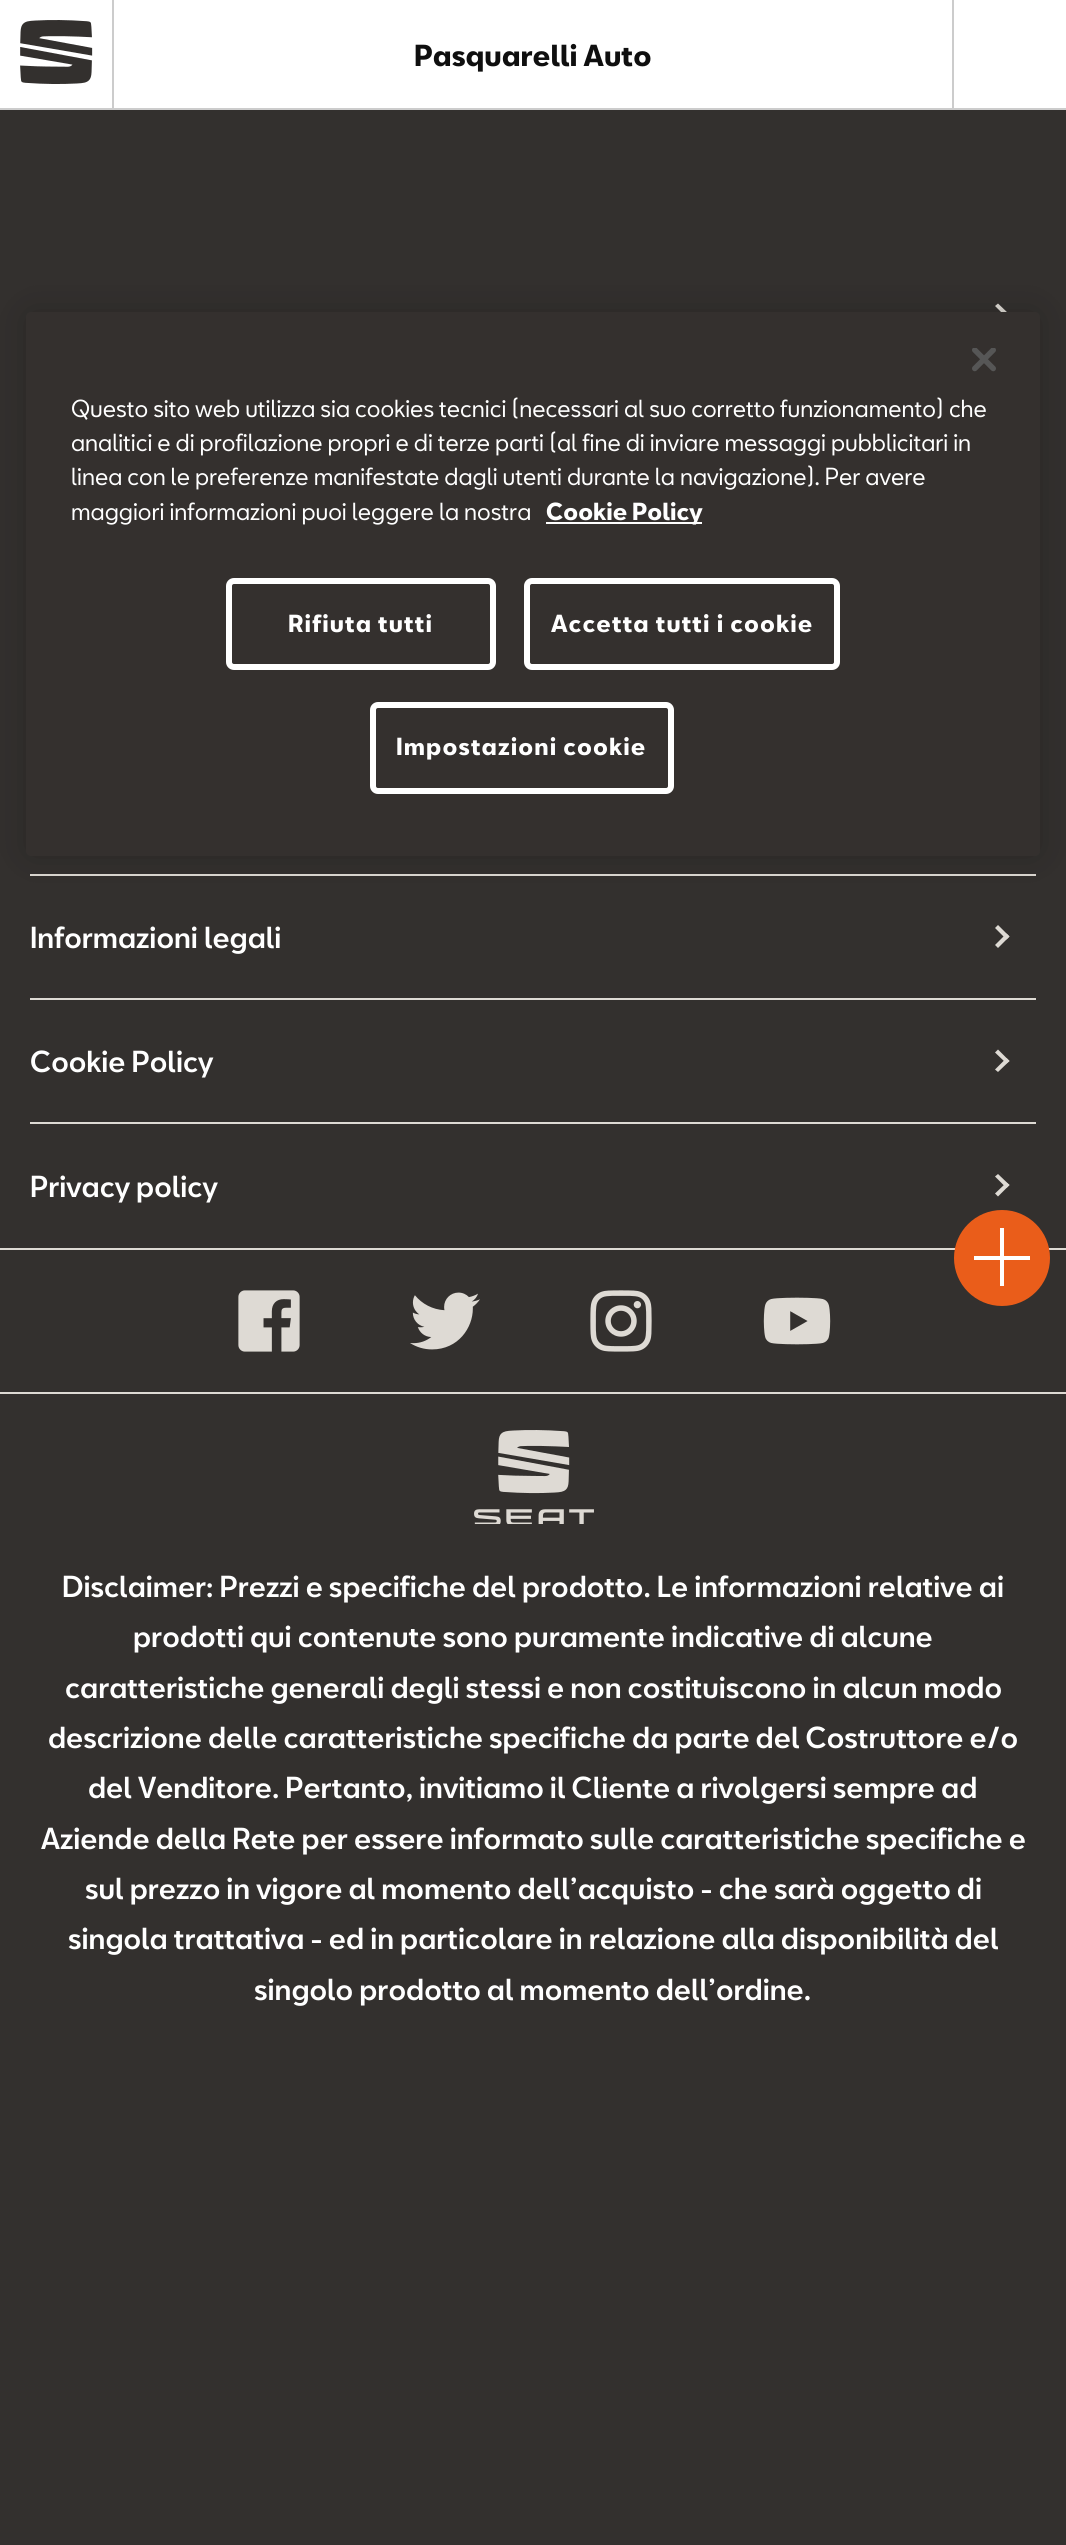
import math
import cairo


def use_color(cr, r, g, b):
  cr.set_source_rgb(r / 255, g / 255, b / 255)

def text(cr, x, y, s, family, size, color, bold=False, italic=False):
  cr.select_font_face(family, cairo.FONT_SLANT_ITALIC if italic else cairo.FONT_SLANT_NORMAL, cairo.FONT_WEIGHT_BOLD if bold else cairo.FONT_WEIGHT_NORMAL)
  cr.set_font_size(size)
  use_color(cr, *color)
  cr.move_to(x, y)
  cr.show_text(s)

def spaced_text(cr, x, y, s, letter, word):
  cr.move_to(x, y)
  for ch in s:
    cr.show_text(ch)
    cr.rel_move_to(letter + word * (ch == ' '), 0)

def box(cr, x, y, w, h, *color):
  use_color(cr, *color)
  cr.rectangle(x, y, w, h)
  cr.fill()

def round_rect(cr, x, y, w, h, r):
  cr.new_sub_path()
  for i, (u, v) in enumerate([(x + w - r, y + h - r), (x + r, y + h - r), (x + r, y + r), (x + w - r, y + r)]):
    cr.arc(u, v, r, i * math.pi / 2, (i + 1) * math.pi / 2)
  cr.close_path()

def shadow(cr, x, y, w, h, r, blur, alpha):
  cr.push_group_with_content(cairo.CONTENT_ALPHA)
  cr.set_operator(cairo.OPERATOR_SOURCE)
  for i in range(15, -16, -2):
    e = blur * i / 6
    if min(w, h) + 2 * e > 0:
      cr.set_source_rgba(0, 0, 0, alpha * math.erfc((i - 1) / 8.5) / 2)
      round_rect(cr, x - e, y - e, w + 2 * e, h + 2 * e, max(0, min(r + e + blur * .6, min(w, h) / 2 + e)))
      cr.fill()
  cr.mask(cr.pop_group())

def picture(cr, path, x, y, w, h):
  cr.save()
  cr.set_source_surface(cairo.ImageSurface.create_from_png(path), x, y)
  cr.rectangle(x, y, w, h)
  cr.fill()
  cr.restore()

def draw(cr):
  use_color(cr, 51, 48, 46)
  cr.paint()
  box(cr, 0, 0, 1066, 108, 255, 255, 255)
  box(cr, 0, 108, 1066, 2, 204, 204, 204)
  picture(cr, "img_01.png", 20, 20, 73, 64)
  box(cr, 112, 0, 2, 108, 204, 204, 204)
  box(cr, 952, 0, 2, 108, 204, 204, 204)
  use_color(cr, 222, 218, 212)
  cr.new_path()
  cr.move_to(995, 306)
  cr.line_to(998, 303.5)
  cr.line_to(1009.5, 314.5)
  cr.line_to(1006.5, 317.5)
  cr.close_path()
  cr.fill()
  box(cr, 30, 874, 1006, 2, 222, 218, 212)
  use_color(cr, 0, 0, 0)
  shadow(cr, 26, 312, 1014, 544, 5, 18, 0.2)
  use_color(cr, 52, 48, 46)
  round_rect(cr, 26, 312, 1014, 544, 5)
  cr.fill()
  picture(cr, "img_02.png", 972, 348, 24, 24)
  box(cr, 546, 522, 156, 2, 255, 255, 255)
  round_rect(cr, 229, 581, 264, 86, 5)
  cr.set_line_width(6)
  cr.stroke()
  round_rect(cr, 527, 581, 310, 86, 5)
  cr.stroke()
  round_rect(cr, 373, 705, 298, 86, 5)
  cr.stroke()
  use_color(cr, 222, 218, 212)
  cr.new_path()
  cr.move_to(995, 928)
  cr.line_to(998, 925)
  cr.line_to(1009.5, 936.5)
  cr.line_to(1006.5, 939.5)
  cr.close_path()
  cr.fill()
  cr.new_path()
  cr.move_to(995, 945)
  cr.line_to(1006.5, 933.5)
  cr.line_to(1009.5, 936.5)
  cr.line_to(998, 948)
  cr.close_path()
  cr.fill()
  box(cr, 30, 998, 1006, 2, 222, 218, 212)
  cr.new_path()
  cr.move_to(995, 1052.5)
  cr.line_to(998, 1049.5)
  cr.line_to(1009.5, 1061)
  cr.line_to(1006.5, 1063.5)
  cr.close_path()
  cr.fill()
  cr.new_path()
  cr.move_to(995, 1069.5)
  cr.line_to(1006.5, 1058)
  cr.line_to(1009.5, 1061)
  cr.line_to(998, 1072)
  cr.close_path()
  cr.fill()
  box(cr, 30, 1122, 1006, 2, 222, 218, 212)
  cr.new_path()
  cr.move_to(995, 1176.5)
  cr.line_to(998, 1174)
  cr.line_to(1009.5, 1185)
  cr.line_to(1006.5, 1188)
  cr.close_path()
  cr.fill()
  cr.new_path()
  cr.move_to(995, 1193.5)
  cr.line_to(1006.5, 1182.5)
  cr.line_to(1009.5, 1185)
  cr.line_to(998, 1196.5)
  cr.close_path()
  cr.fill()
  box(cr, 0, 1248, 1066, 2, 222, 218, 212)
  box(cr, 0, 1392, 1066, 2, 222, 218, 212)
  picture(cr, "img_03.png", 238, 1290, 62, 62)
  picture(cr, "img_04.png", 410, 1292, 70, 58)
  picture(cr, "img_05.png", 590, 1290, 62, 62)
  picture(cr, "img_06.png", 763, 1297, 68, 48)
  picture(cr, "img_07.png", 474, 1430, 120, 94)
  use_color(cr, 234, 93, 26)
  cr.arc(1002, 1258, 48, 0, 2 * math.pi)
  cr.fill()
  box(cr, 974, 1256, 56, 4, 255, 255, 255)
  box(cr, 1000, 1228, 4, 58, 255, 255, 255)
  text(cr, 414, 66, "Pasquarelli Auto", "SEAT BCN", 28, (15, 15, 15), bold=True)
  text(cr, 71, 417, "Questo sito web utilizza sia cookies tecnici (necessari al suo corretto funzionamento) che", "SEAT BCN", 22.75, (255, 255, 255))
  text(cr, 71, 451, "analitici e di profilazione propri e di terze parti (al fine di inviare messaggi pubblicitari in", "SEAT BCN", 22.75, (255, 255, 255))
  text(cr, 71, 485, "linea con le preferenze manifestate dagli utenti durante la navigazione). Per avere", "SEAT BCN", 22.75, (255, 255, 255))
  text(cr, 71, 520, "maggiori informazioni puoi leggere la nostra", "SEAT BCN", 22.75, (255, 255, 255))
  text(cr, 546, 520, "Cookie Policy", "SEAT BCN", 22.75, (255, 255, 255), bold=True)
  spaced_text(cr, 288, 632, "Rifiuta tutti", 1.1, 0)
  spaced_text(cr, 551, 632, "Accetta tutti i cookie", 1.1, 0)
  spaced_text(cr, 396, 755, "Impostazioni cookie", 1.1, 0)
  text(cr, 30, 948, "Informazioni legali", "SEAT BCN Medium", 28, (255, 255, 255))
  text(cr, 30, 1072, "Cookie Policy", "SEAT BCN Medium", 28, (255, 255, 255))
  text(cr, 30, 1197, "Privacy policy", "SEAT BCN Medium", 28, (255, 255, 255))
  text(cr, 62, 1597, "Disclaimer: Prezzi e specifiche del prodotto. Le informazioni relative ai", "SEAT BCN Medium", 28, (255, 255, 255))
  text(cr, 133, 1647, "prodotti qui contenute sono puramente indicative di alcune", "SEAT BCN Medium", 28, (255, 255, 255))
  text(cr, 65, 1698, "caratteristiche generali degli stessi e non costituiscono in alcun modo", "SEAT BCN Medium", 28, (255, 255, 255))
  text(cr, 48, 1748, "descrizione delle caratteristiche specifiche da parte del Costruttore e/o", "SEAT BCN Medium", 28, (255, 255, 255))
  text(cr, 88, 1798, "del Venditore. Pertanto, invitiamo il Cliente a rivolgersi sempre ad", "SEAT BCN Medium", 28, (255, 255, 255))
  text(cr, 41, 1849, "Aziende della Rete per essere informato sulle caratteristiche specifiche e", "SEAT BCN Medium", 28, (255, 255, 255))
  text(cr, 85, 1899, "sul prezzo in vigore al momento dell’acquisto - che sarà oggetto di", "SEAT BCN Medium", 28, (255, 255, 255))
  text(cr, 68, 1949, "singola trattativa - ed in particolare in relazione alla disponibilità del", "SEAT BCN Medium", 28, (255, 255, 255))
  text(cr, 254, 2000, "singolo prodotto al momento dell’ordine.", "SEAT BCN Medium", 28, (255, 255, 255))


surface = cairo.ImageSurface(cairo.FORMAT_RGB24, 1066, 2545)
cr = cairo.Context(surface)
options = cairo.FontOptions()
options.set_hint_metrics(cairo.HINT_METRICS_OFF)
options.set_hint_style(cairo.HINT_STYLE_NONE)
cr.set_font_options(options)
cr.set_miter_limit(4)
draw(cr)
surface.write_to_png("out.png")
